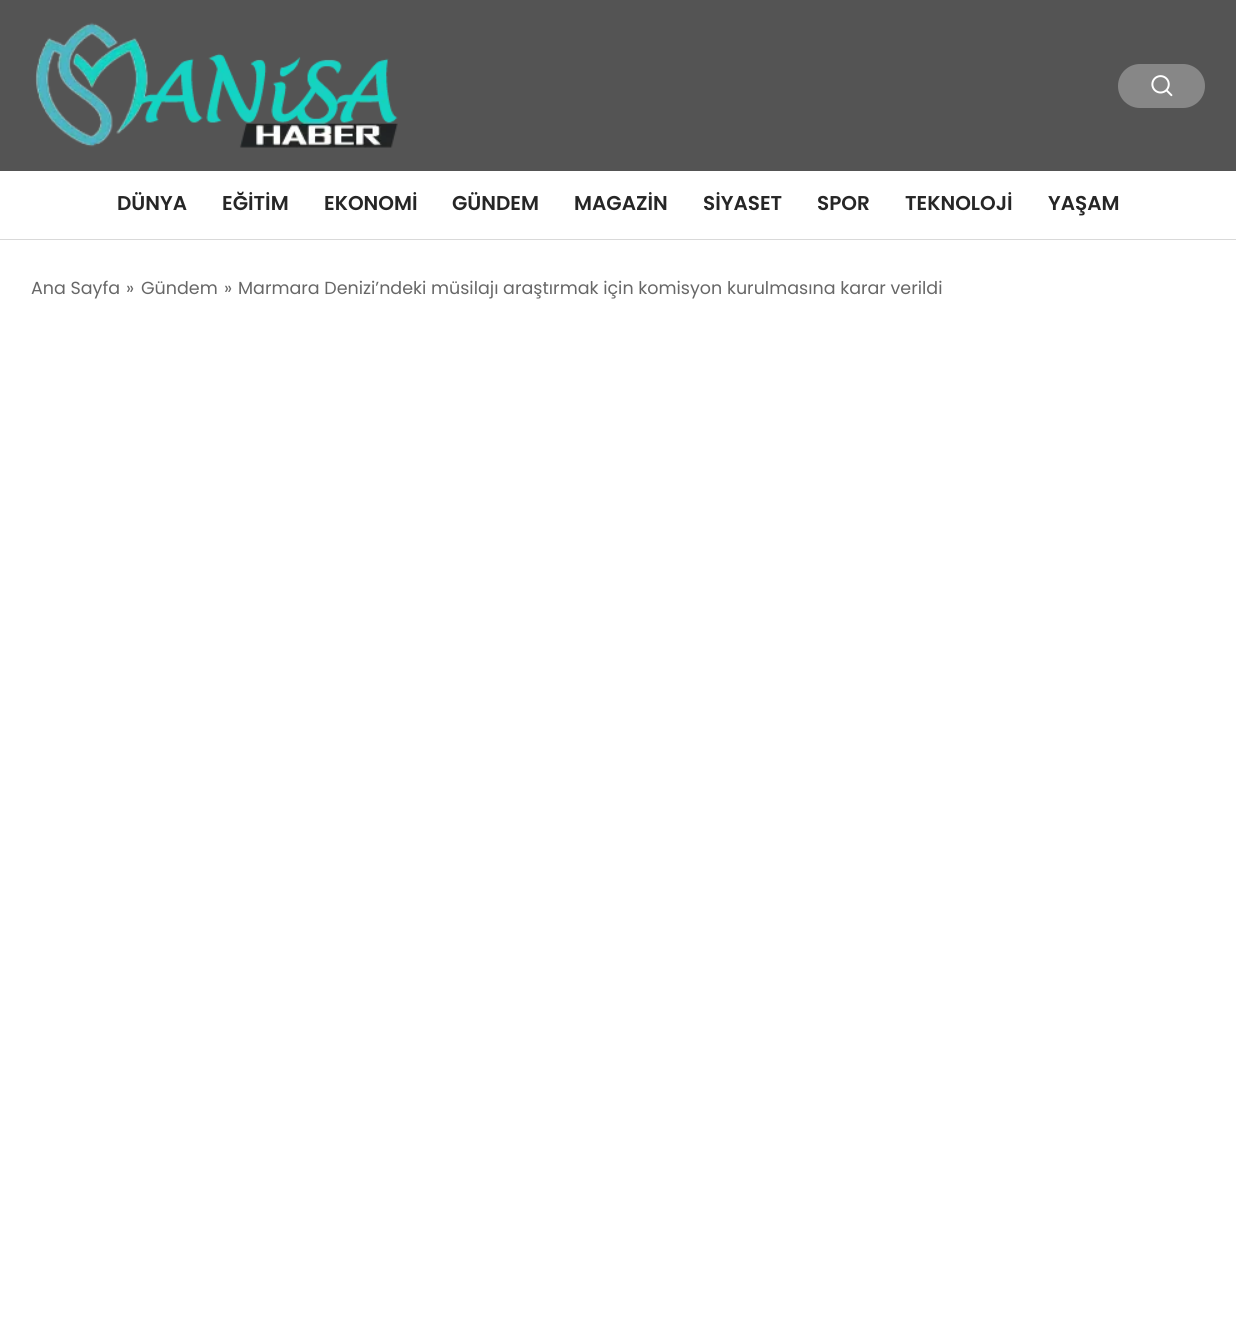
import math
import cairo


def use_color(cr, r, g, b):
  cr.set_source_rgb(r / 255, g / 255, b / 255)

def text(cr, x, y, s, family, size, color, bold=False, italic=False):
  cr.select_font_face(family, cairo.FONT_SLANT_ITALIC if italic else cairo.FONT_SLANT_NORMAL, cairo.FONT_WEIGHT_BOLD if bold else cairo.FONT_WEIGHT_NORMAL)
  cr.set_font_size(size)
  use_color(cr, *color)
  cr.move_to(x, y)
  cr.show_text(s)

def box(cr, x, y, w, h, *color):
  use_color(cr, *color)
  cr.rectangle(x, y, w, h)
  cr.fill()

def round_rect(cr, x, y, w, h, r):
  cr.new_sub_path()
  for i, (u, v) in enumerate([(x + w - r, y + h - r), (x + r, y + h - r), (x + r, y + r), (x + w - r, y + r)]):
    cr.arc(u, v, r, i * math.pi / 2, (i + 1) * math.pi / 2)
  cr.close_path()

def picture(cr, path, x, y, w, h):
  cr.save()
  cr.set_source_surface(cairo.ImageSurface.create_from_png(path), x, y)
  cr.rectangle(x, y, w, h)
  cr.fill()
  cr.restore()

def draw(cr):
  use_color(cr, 255, 255, 255)
  cr.paint()
  box(cr, 0, 0, 1236, 171, 84, 84, 84)
  picture(cr, "img_01.png", 35, 22, 363, 126)
  use_color(cr, 135, 135, 135)
  round_rect(cr, 1118, 64, 87, 44, 22)
  cr.fill()
  picture(cr, "img_02.png", 1151, 75, 22, 22)
  box(cr, 0, 239, 1236, 1, 217, 217, 217)
  text(cr, 117, 210, "DÜNYA", "Poppins SemiBold", 20, (38, 38, 38))
  text(cr, 222, 210, "EĞİTİM", "Poppins SemiBold", 20, (38, 38, 38))
  text(cr, 324, 210, "EKONOMİ", "Poppins SemiBold", 20, (38, 38, 38))
  text(cr, 452, 210, "GÜNDEM", "Poppins SemiBold", 20, (38, 38, 38))
  text(cr, 574, 210, "MAGAZİN", "Poppins SemiBold", 20, (38, 38, 38))
  text(cr, 703, 210, "SİYASET", "Poppins SemiBold", 20, (38, 38, 38))
  text(cr, 817, 210, "SPOR", "Poppins SemiBold", 20, (38, 38, 38))
  text(cr, 905, 210, "TEKNOLOJİ", "Poppins SemiBold", 20, (38, 38, 38))
  text(cr, 1048, 210, "YAŞAM", "Poppins SemiBold", 20, (38, 38, 38))
  text(cr, 31, 294, "Ana Sayfa", "Poppins", 17.5, (103, 103, 103))
  text(cr, 126, 294, "»", "Poppins", 17.5, (103, 103, 103))
  text(cr, 141, 294, "Gündem", "Poppins", 17.5, (103, 103, 103))
  text(cr, 224, 294, "»", "Poppins", 17.5, (103, 103, 103))
  text(cr, 238, 294, "Marmara Denizi’ndeki müsilajı araştırmak için komisyon kurulmasına karar verildi", "Poppins", 17.5, (103, 103, 103))


surface = cairo.ImageSurface(cairo.FORMAT_RGB24, 1236, 1325)
cr = cairo.Context(surface)
options = cairo.FontOptions()
options.set_hint_metrics(cairo.HINT_METRICS_OFF)
options.set_hint_style(cairo.HINT_STYLE_NONE)
cr.set_font_options(options)
cr.set_miter_limit(4)
draw(cr)
surface.write_to_png("out.png")
